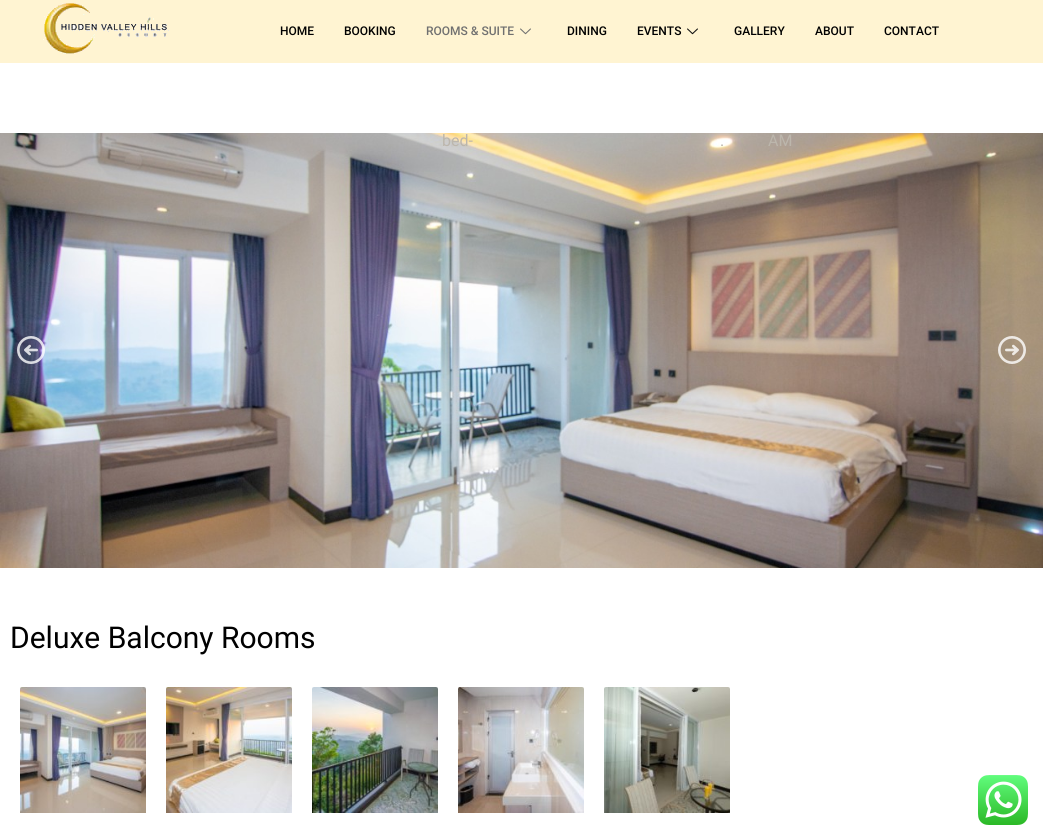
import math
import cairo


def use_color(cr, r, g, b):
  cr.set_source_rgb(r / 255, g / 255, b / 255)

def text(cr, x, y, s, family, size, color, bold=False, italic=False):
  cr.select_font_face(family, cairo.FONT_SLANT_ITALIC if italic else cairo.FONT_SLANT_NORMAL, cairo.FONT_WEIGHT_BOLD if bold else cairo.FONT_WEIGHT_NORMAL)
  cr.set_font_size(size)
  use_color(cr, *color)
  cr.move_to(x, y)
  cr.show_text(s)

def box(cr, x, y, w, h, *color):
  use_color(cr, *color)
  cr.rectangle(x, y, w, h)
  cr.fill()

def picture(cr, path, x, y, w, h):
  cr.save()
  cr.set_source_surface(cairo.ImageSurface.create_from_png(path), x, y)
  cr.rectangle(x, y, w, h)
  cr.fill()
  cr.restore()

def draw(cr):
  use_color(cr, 255, 255, 255)
  cr.paint()
  box(cr, 0, 0, 1043, 63, 255, 244, 210)
  picture(cr, "img_01.png", 43, 3, 126, 51)
  picture(cr, "img_02.png", 520, 28, 11, 7)
  picture(cr, "img_03.png", 687, 28, 11, 7)
  picture(cr, "img_04.png", 0, 133, 1043, 435)
  picture(cr, "img_05.png", 17, 336, 28, 28)
  picture(cr, "img_06.png", 998, 336, 28, 28)
  picture(cr, "img_07.png", 20, 687, 126, 126)
  picture(cr, "img_08.png", 166, 687, 126, 126)
  picture(cr, "img_09.png", 312, 687, 126, 126)
  picture(cr, "img_10.png", 458, 687, 126, 126)
  picture(cr, "img_11.png", 604, 687, 126, 126)
  picture(cr, "img_12.png", 978, 775, 50, 50)
  text(cr, 280, 35, "HOME", "Roboto Medium", 12, (0, 0, 0))
  text(cr, 344, 35, "BOOKING", "Roboto Medium", 12, (0, 0, 0))
  text(cr, 426, 35, "ROOMS & SUITE", "Roboto Medium", 12, (112, 112, 112))
  text(cr, 567, 35, "DINING", "Roboto Medium", 12, (0, 0, 0))
  text(cr, 637, 35, "EVENTS", "Roboto Medium", 12, (0, 0, 0))
  text(cr, 734, 35, "GALLERY", "Roboto Medium", 12, (0, 0, 0))
  text(cr, 815, 35, "ABOUT", "Roboto Medium", 12, (0, 0, 0))
  text(cr, 884, 35, "CONTACT", "Roboto Medium", 12, (0, 0, 0))
  text(cr, 442, 146, "bed-", "Roboto", 16, (188, 182, 172))
  text(cr, 720, 146, ".", "Roboto", 16, (188, 182, 172))
  text(cr, 768, 146, "AM", "Roboto", 16, (188, 182, 172))
  text(cr, 10, 648, "Deluxe Balcony Rooms", "Roboto", 30, (0, 0, 0))


surface = cairo.ImageSurface(cairo.FORMAT_RGB24, 1043, 840)
cr = cairo.Context(surface)
options = cairo.FontOptions()
options.set_hint_metrics(cairo.HINT_METRICS_OFF)
options.set_hint_style(cairo.HINT_STYLE_NONE)
cr.set_font_options(options)
cr.set_miter_limit(4)
draw(cr)
surface.write_to_png("out.png")
